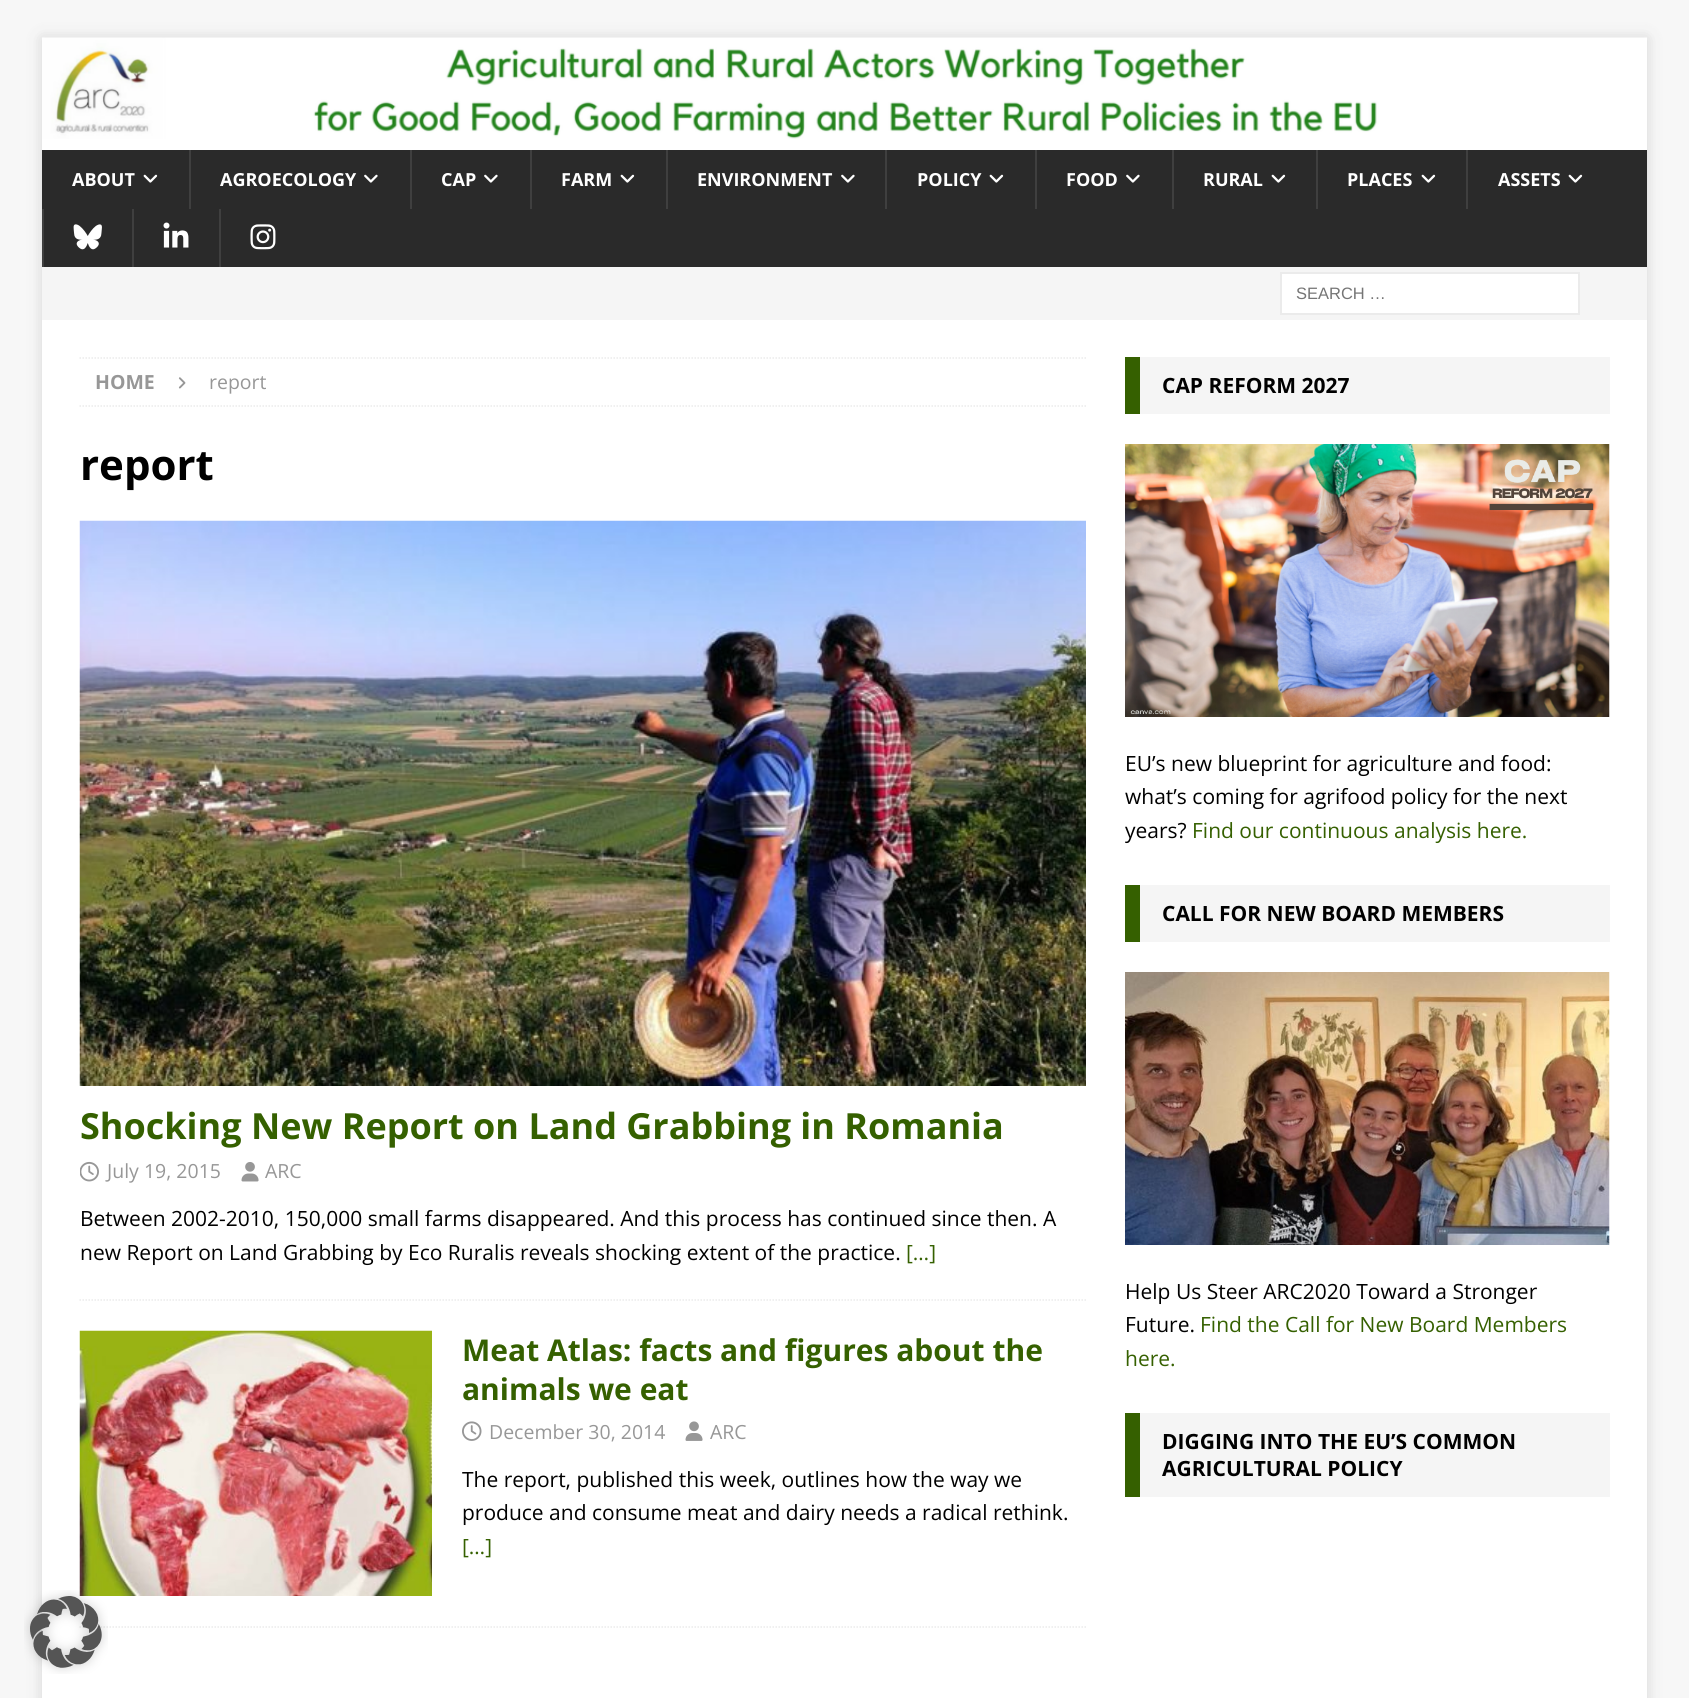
import math
import cairo


def use_color(cr, r, g, b):
  cr.set_source_rgb(r / 255, g / 255, b / 255)

def text(cr, x, y, s, family, size, color, bold=False, italic=False):
  cr.select_font_face(family, cairo.FONT_SLANT_ITALIC if italic else cairo.FONT_SLANT_NORMAL, cairo.FONT_WEIGHT_BOLD if bold else cairo.FONT_WEIGHT_NORMAL)
  cr.set_font_size(size)
  use_color(cr, *color)
  cr.move_to(x, y)
  cr.show_text(s)

def box(cr, x, y, w, h, *color):
  use_color(cr, *color)
  cr.rectangle(x, y, w, h)
  cr.fill()

def round_rect(cr, x, y, w, h, r):
  cr.new_sub_path()
  for i, (u, v) in enumerate([(x + w - r, y + h - r), (x + r, y + h - r), (x + r, y + r), (x + w - r, y + r)]):
    cr.arc(u, v, r, i * math.pi / 2, (i + 1) * math.pi / 2)
  cr.close_path()

def shadow(cr, x, y, w, h, r, blur, alpha):
  cr.push_group_with_content(cairo.CONTENT_ALPHA)
  cr.set_operator(cairo.OPERATOR_SOURCE)
  for i in range(15, -16, -2):
    e = blur * i / 6
    if min(w, h) + 2 * e > 0:
      cr.set_source_rgba(0, 0, 0, alpha * math.erfc((i - 1) / 8.5) / 2)
      round_rect(cr, x - e, y - e, w + 2 * e, h + 2 * e, max(0, min(r + e + blur * .6, min(w, h) / 2 + e)))
      cr.fill()
  cr.mask(cr.pop_group())

def picture(cr, path, x, y, w, h):
  cr.save()
  cr.set_source_surface(cairo.ImageSurface.create_from_png(path), x, y)
  cr.rectangle(x, y, w, h)
  cr.fill()
  cr.restore()

def draw(cr):
  use_color(cr, 247, 247, 247)
  cr.paint()
  use_color(cr, 50, 50, 50)
  shadow(cr, 42, 38, 1605, 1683, 0, 7.5, 0.17)
  box(cr, 42, 139, 1605, 11, 255, 255, 255)
  picture(cr, "img_01.png", 42, 37, 1605, 102)
  box(cr, 42, 150, 1605, 117, 42, 42, 42)
  picture(cr, "img_02.png", 143, 174, 15, 9)
  box(cr, 189, 150, 2, 59, 63, 63, 63)
  picture(cr, "img_03.png", 364, 174, 14, 9)
  box(cr, 410, 150, 2, 59, 63, 63, 63)
  picture(cr, "img_03.png", 484, 174, 14, 9)
  box(cr, 530, 150, 2, 59, 63, 63, 63)
  picture(cr, "img_02.png", 620, 174, 15, 9)
  box(cr, 666, 150, 2, 59, 63, 63, 63)
  picture(cr, "img_03.png", 841, 174, 14, 9)
  box(cr, 885, 150, 2, 59, 63, 63, 63)
  picture(cr, "img_02.png", 989, 174, 15, 9)
  box(cr, 1035, 150, 2, 59, 63, 63, 63)
  picture(cr, "img_03.png", 1126, 174, 14, 9)
  box(cr, 1172, 150, 2, 59, 63, 63, 63)
  picture(cr, "img_02.png", 1271, 174, 15, 9)
  box(cr, 1316, 150, 2, 59, 63, 63, 63)
  picture(cr, "img_02.png", 1421, 174, 15, 9)
  box(cr, 1466, 150, 2, 59, 63, 63, 63)
  picture(cr, "img_02.png", 1568, 174, 15, 9)
  box(cr, 42, 209, 2, 58, 63, 63, 63)
  picture(cr, "img_04.png", 73, 224, 29, 26)
  box(cr, 132, 209, 2, 58, 63, 63, 63)
  picture(cr, "img_05.png", 163, 222, 26, 26)
  box(cr, 219, 209, 2, 58, 63, 63, 63)
  picture(cr, "img_06.png", 250, 224, 26, 26)
  box(cr, 42, 267, 1605, 53, 245, 245, 245)
  use_color(cr, 255, 255, 255)
  cr.rectangle(1281, 273, 298, 41)
  cr.fill_preserve()
  use_color(cr, 235, 235, 235)
  cr.stroke()
  box(cr, 42, 320, 1605, 1378, 255, 255, 255)
  cr.new_path()
  cr.move_to(79.5, 358)
  cr.line_to(1086, 358)
  use_color(cr, 235, 235, 235)
  cr.set_line_width(1.5)
  cr.set_dash([1.5, 1.5])
  cr.stroke()
  cr.new_path()
  cr.move_to(79.5, 406)
  cr.line_to(1086, 406)
  cr.stroke()
  picture(cr, "img_07.png", 178, 377, 8, 12)
  cr.new_path()
  cr.move_to(79.5, 1300)
  cr.line_to(1086, 1300)
  cr.stroke()
  picture(cr, "img_08.png", 79, 520, 1007, 566)
  picture(cr, "img_09.png", 80, 1161, 19, 21)
  picture(cr, "img_10.png", 241, 1162, 18, 20)
  cr.new_path()
  cr.move_to(79.5, 1627)
  cr.line_to(1086, 1627)
  cr.stroke()
  picture(cr, "img_11.png", 79, 1330, 353, 266)
  picture(cr, "img_12.png", 462, 1421, 20, 20)
  picture(cr, "img_13.png", 685, 1421, 18, 20)
  box(cr, 1140, 357, 470, 57, 245, 245, 245)
  box(cr, 1125, 357, 15, 57, 53, 96, 0)
  picture(cr, "img_14.png", 1125, 444, 485, 273)
  box(cr, 1140, 885, 470, 57, 245, 245, 245)
  box(cr, 1125, 885, 15, 57, 53, 96, 0)
  picture(cr, "img_15.png", 1125, 972, 485, 273)
  box(cr, 1140, 1413, 470, 84, 245, 245, 245)
  box(cr, 1125, 1413, 15, 84, 53, 96, 0)
  picture(cr, "img_16.png", 24, 1590, 84, 84)
  text(cr, 72, 186, "ABOUT", "Open Sans", 18, (255, 255, 255), bold=True)
  text(cr, 220, 186, "AGROECOLOGY", "Open Sans", 18, (255, 255, 255), bold=True)
  text(cr, 441, 186, "CAP", "Open Sans", 18, (255, 255, 255), bold=True)
  text(cr, 561, 186, "FARM", "Open Sans", 18, (255, 255, 255), bold=True)
  text(cr, 697, 186, "ENVIRONMENT", "Open Sans", 18, (255, 255, 255), bold=True)
  text(cr, 917, 186, "POLICY", "Open Sans", 18, (255, 255, 255), bold=True)
  text(cr, 1066, 186, "FOOD", "Open Sans", 18, (255, 255, 255), bold=True)
  text(cr, 1203, 186, "RURAL", "Open Sans", 18, (255, 255, 255), bold=True)
  text(cr, 1347, 186, "PLACES", "Open Sans", 18, (255, 255, 255), bold=True)
  text(cr, 1498, 186, "ASSETS", "Open Sans", 18, (255, 255, 255), bold=True)
  text(cr, 1296, 299, "SEARCH …", "Liberation Sans", 16.5, (117, 117, 117))
  text(cr, 95, 389, "HOME", "Open Sans", 19.5, (151, 151, 151), bold=True)
  text(cr, 209, 389, "report", "Open Sans", 19.5, (151, 151, 151))
  text(cr, 80, 480, "report", "Open Sans", 42, (0, 0, 0), bold=True)
  text(cr, 80, 1139, "Shocking New Report on Land Grabbing in Romania", "Open Sans", 36, (53, 96, 0), bold=True)
  text(cr, 107, 1178, "July 19, 2015", "Open Sans", 19.5, (151, 151, 151))
  text(cr, 265, 1178, "ARC", "Open Sans", 19.5, (151, 151, 151))
  text(cr, 80, 1226, "Between 2002-2010, 150,000 small farms disappeared. And this process has continued since then. A", "Open Sans", 21, (0, 0, 0))
  text(cr, 80, 1260, "new Report on Land Grabbing by Eco Ruralis reveals shocking extent of the practice.", "Open Sans", 21, (0, 0, 0))
  text(cr, 906, 1260, "[…]", "Open Sans", 21, (53, 96, 0))
  text(cr, 462, 1361, "Meat Atlas: facts and figures about the", "Open Sans", 30, (53, 96, 0), bold=True)
  text(cr, 462, 1400, "animals we eat", "Open Sans", 30, (53, 96, 0), bold=True)
  text(cr, 489, 1439, "December 30, 2014", "Open Sans", 19.5, (151, 151, 151))
  text(cr, 710, 1439, "ARC", "Open Sans", 19.5, (151, 151, 151))
  text(cr, 462, 1487, "The report, published this week, outlines how the way we", "Open Sans", 21, (0, 0, 0))
  text(cr, 462, 1520, "produce and consume meat and dairy needs a radical rethink.", "Open Sans", 21, (0, 0, 0))
  text(cr, 462, 1554, "[…]", "Open Sans", 21, (53, 96, 0))
  text(cr, 1162, 393, "CAP REFORM 2027", "Open Sans", 21, (0, 0, 0), bold=True)
  text(cr, 1125, 771, "EU’s new blueprint for agriculture and food:", "Open Sans", 21, (0, 0, 0))
  text(cr, 1125, 804, "what’s coming for agrifood policy for the next", "Open Sans", 21, (0, 0, 0))
  text(cr, 1125, 838, "years?", "Open Sans", 21, (0, 0, 0))
  text(cr, 1192, 838, "Find our continuous analysis here.", "Open Sans", 21, (53, 96, 0))
  text(cr, 1162, 921, "CALL FOR NEW BOARD MEMBERS", "Open Sans", 21, (0, 0, 0), bold=True)
  text(cr, 1125, 1299, "Help Us Steer ARC2020 Toward a Stronger", "Open Sans", 21, (0, 0, 0))
  text(cr, 1125, 1332, "Future.", "Open Sans", 21, (0, 0, 0))
  text(cr, 1200, 1332, "Find the Call for New Board Members", "Open Sans", 21, (53, 96, 0))
  text(cr, 1125, 1366, "here.", "Open Sans", 21, (53, 96, 0))
  text(cr, 1162, 1449, "DIGGING INTO THE EU’S COMMON", "Open Sans", 21, (0, 0, 0), bold=True)
  text(cr, 1162, 1476, "AGRICULTURAL POLICY", "Open Sans", 21, (0, 0, 0), bold=True)


surface = cairo.ImageSurface(cairo.FORMAT_RGB24, 1689, 1698)
cr = cairo.Context(surface)
options = cairo.FontOptions()
options.set_hint_metrics(cairo.HINT_METRICS_OFF)
options.set_hint_style(cairo.HINT_STYLE_NONE)
cr.set_font_options(options)
cr.set_miter_limit(4)
draw(cr)
surface.write_to_png("out.png")
